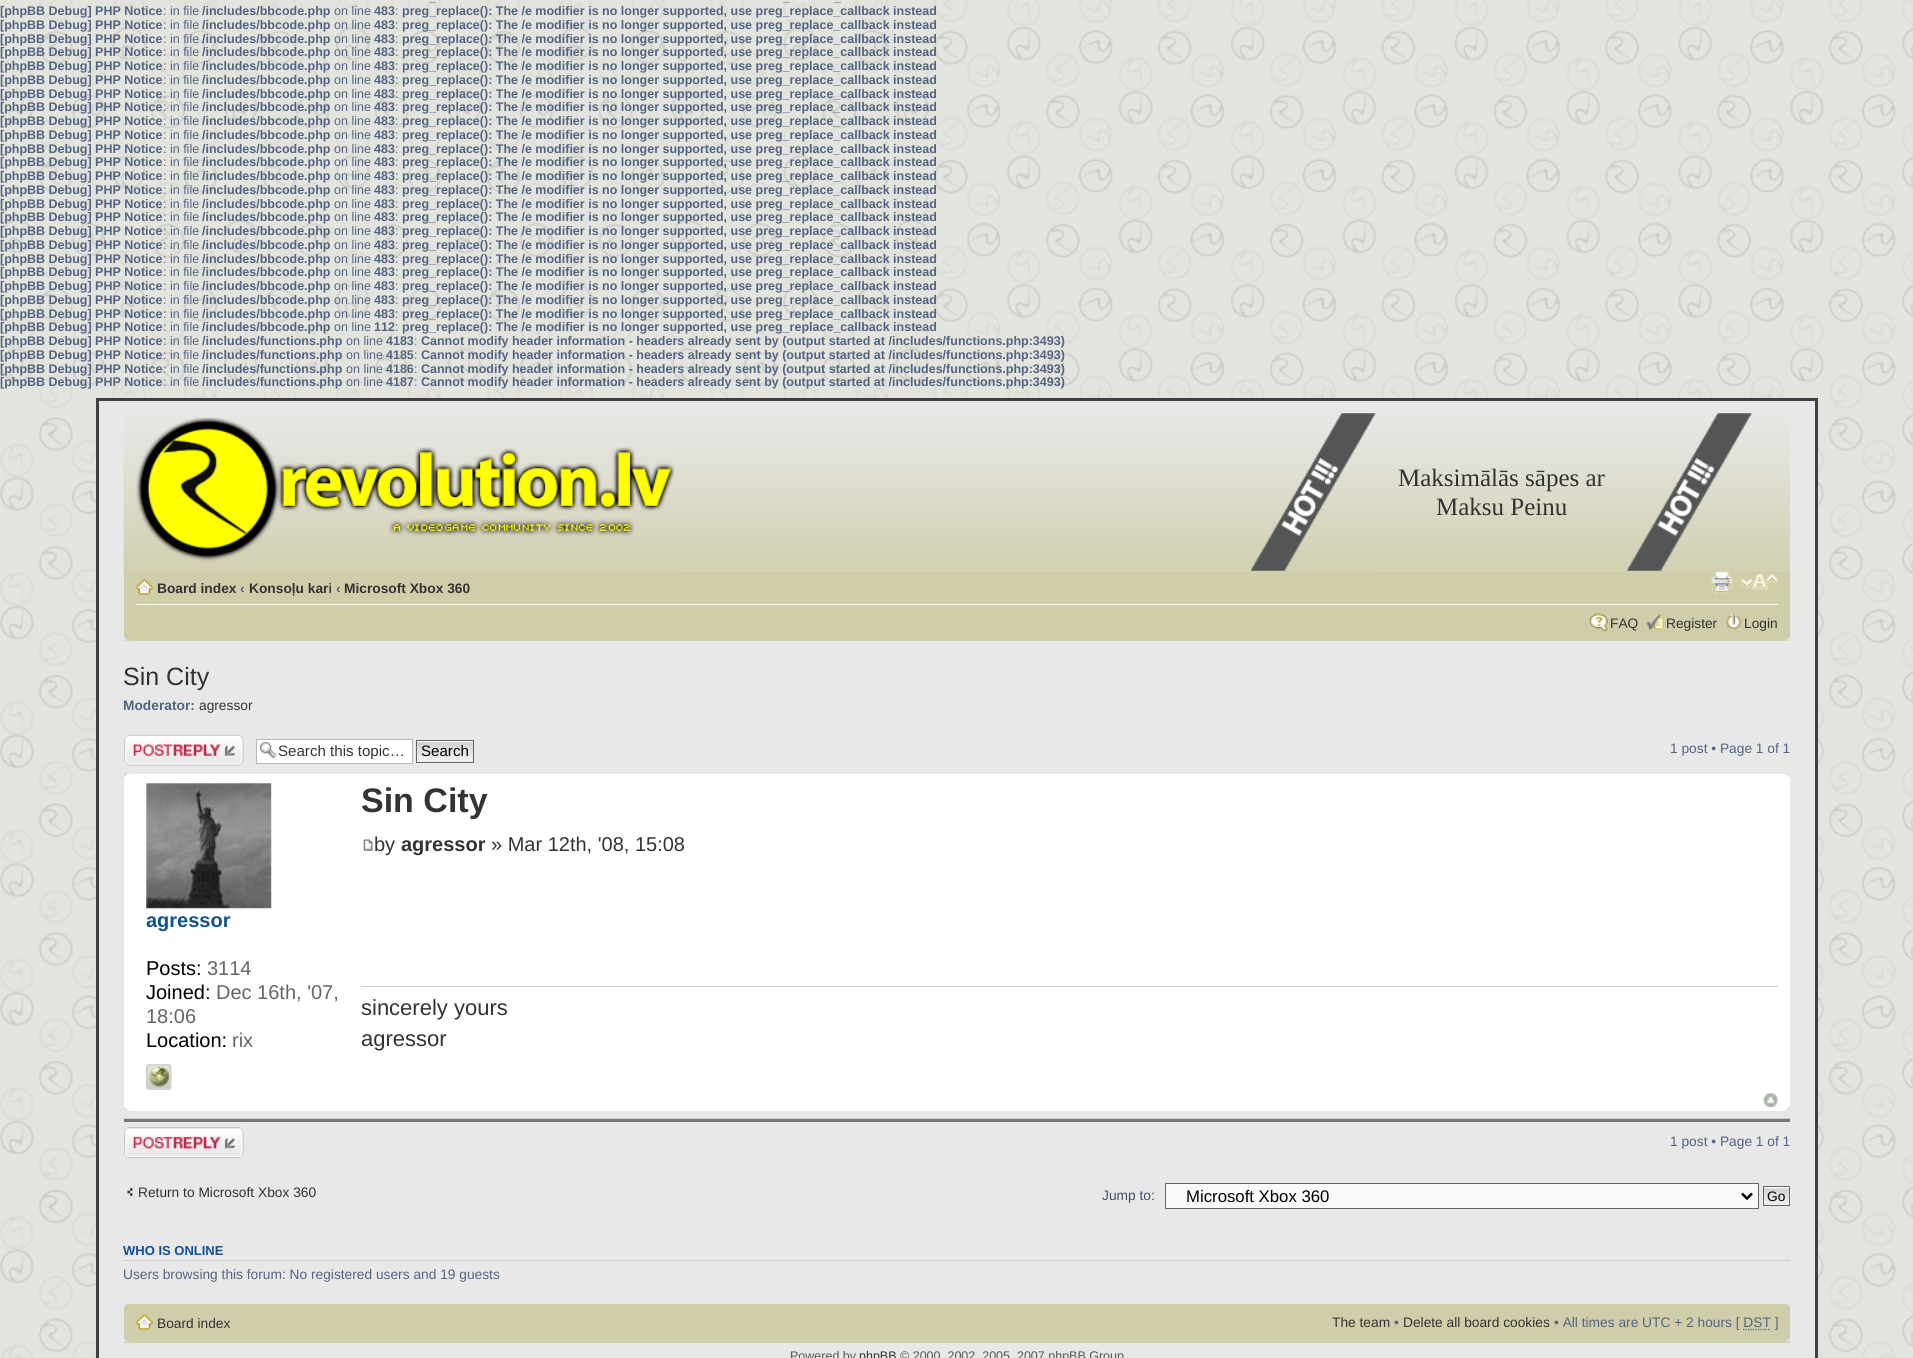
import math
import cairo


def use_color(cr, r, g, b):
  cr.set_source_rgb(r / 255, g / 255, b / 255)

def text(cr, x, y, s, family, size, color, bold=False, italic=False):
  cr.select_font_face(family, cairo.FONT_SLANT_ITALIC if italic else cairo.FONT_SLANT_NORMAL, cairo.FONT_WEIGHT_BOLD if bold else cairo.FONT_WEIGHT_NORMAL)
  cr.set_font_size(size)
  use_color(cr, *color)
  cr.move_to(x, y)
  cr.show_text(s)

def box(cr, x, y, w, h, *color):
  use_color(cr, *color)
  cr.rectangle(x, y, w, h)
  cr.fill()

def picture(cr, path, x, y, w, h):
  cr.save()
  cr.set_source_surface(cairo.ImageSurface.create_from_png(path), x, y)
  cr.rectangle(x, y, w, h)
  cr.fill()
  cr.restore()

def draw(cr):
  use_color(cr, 255, 255, 255)
  cr.paint()
  picture(cr, "img_01.png", 0, 0, 1913, 1358)
  use_color(cr, 232, 232, 232)
  cr.rectangle(97.5, 399.5, 1719, 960)
  cr.fill_preserve()
  use_color(cr, 61, 65, 68)
  cr.set_line_width(3)
  cr.stroke()
  picture(cr, "img_02.png", 123, 414, 1667, 157)
  picture(cr, "img_03.png", 123, 417, 552, 154)
  picture(cr, "img_04.png", 1251, 413, 125, 158)
  picture(cr, "img_05.png", 1627, 413, 126, 158)
  box(cr, 124, 571, 1666, 70, 208, 205, 171)
  box(cr, 136, 604, 1642, 1, 255, 255, 255)
  picture(cr, "img_06.png", 136, 579, 17, 16)
  picture(cr, "img_07.png", 1711, 571, 22, 23)
  picture(cr, "img_08.png", 1741, 574, 37, 16)
  picture(cr, "img_09.png", 1589, 613, 20, 18)
  picture(cr, "img_10.png", 1646, 614, 18, 17)
  picture(cr, "img_11.png", 1726, 614, 16, 16)
  picture(cr, "img_12.png", 124, 637, 6, 4)
  picture(cr, "img_13.png", 1784, 637, 6, 4)
  picture(cr, "img_14.png", 124, 734, 120, 32)
  box(cr, 257, 740, 155, 23, 255, 255, 255)
  picture(cr, "img_15.png", 259, 741, 18, 18)
  cr.rectangle(256.5, 739.5, 156, 24)
  use_color(cr, 180, 186, 192)
  cr.set_line_width(1)
  cr.stroke()
  box(cr, 417, 741, 56, 1, 250, 250, 250)
  picture(cr, "img_16.png", 417, 742, 56, 20)
  cr.rectangle(416.5, 740.5, 57, 22)
  use_color(cr, 102, 102, 102)
  cr.stroke()
  box(cr, 124, 774, 1666, 337, 255, 255, 255)
  picture(cr, "img_17.png", 124, 773, 5, 4)
  picture(cr, "img_18.png", 1784, 773, 6, 4)
  picture(cr, "img_19.png", 146, 783, 126, 126)
  picture(cr, "img_20.png", 146, 1064, 26, 26)
  picture(cr, "img_21.png", 146, 1064, 26, 26)
  picture(cr, "img_22.png", 363, 839, 10, 12)
  box(cr, 361, 986, 1417, 1, 204, 204, 204)
  picture(cr, "img_23.png", 1763, 1093, 15, 14)
  picture(cr, "img_24.png", 124, 1107, 6, 4)
  picture(cr, "img_25.png", 1784, 1107, 6, 4)
  box(cr, 124, 1119, 1666, 3, 120, 120, 120)
  box(cr, 124, 1118, 1666, 1, 204, 204, 204)
  picture(cr, "img_26.png", 124, 1127, 120, 31)
  picture(cr, "img_27.png", 127, 1188, 6, 8)
  use_color(cr, 250, 250, 250)
  cr.rectangle(1165.5, 1183.5, 593, 25)
  cr.fill_preserve()
  use_color(cr, 102, 102, 102)
  cr.stroke()
  cr.new_path()
  cr.move_to(1742, 1193.5)
  cr.line_to(1747, 1198.5)
  cr.line_to(1752, 1193.5)
  use_color(cr, 0, 0, 0)
  cr.set_line_width(2.5)
  cr.stroke()
  picture(cr, "img_28.png", 1762, 1187, 27, 19)
  cr.rectangle(1763.5, 1186.5, 26, 19)
  use_color(cr, 102, 102, 102)
  cr.set_line_width(1)
  cr.stroke()
  box(cr, 124, 1260, 1666, 1, 204, 204, 204)
  box(cr, 124, 1304, 1666, 39, 208, 205, 171)
  picture(cr, "img_29.png", 124, 1303, 6, 4)
  picture(cr, "img_30.png", 1784, 1303, 6, 4)
  picture(cr, "img_06.png", 136, 1314, 17, 16)
  cr.new_path()
  cr.move_to(1743, 1329.5)
  cr.line_to(1770.5, 1329.5)
  use_color(cr, 83, 100, 130)
  cr.set_line_width(1.2)
  cr.set_dash([1.25, 1.25])
  cr.stroke()
  picture(cr, "img_31.png", 124, 1338, 6, 4)
  picture(cr, "img_32.png", 1784, 1338, 6, 4)
  text(cr, 429, 1, "_", "Liberation Sans", 12.5, (83, 100, 130), bold=True)
  text(cr, 783, 1, "_", "Liberation Sans", 12.5, (83, 100, 130), bold=True)
  text(cr, 834, 1, "_", "Liberation Sans", 12.5, (83, 100, 130), bold=True)
  text(cr, 0, 15, "[phpBB Debug] PHP Notice", "Liberation Sans", 12.5, (83, 100, 130), bold=True)
  text(cr, 163, 15, ": in file", "Liberation Sans", 12.5, (83, 100, 130))
  text(cr, 202, 15, "/includes/bbcode.php", "Liberation Sans", 12.5, (83, 100, 130), bold=True)
  text(cr, 334, 15, "on line", "Liberation Sans", 12.5, (83, 100, 130))
  text(cr, 374, 15, "483", "Liberation Sans", 12.5, (83, 100, 130), bold=True)
  text(cr, 395, 15, ":", "Liberation Sans", 12.5, (83, 100, 130))
  text(cr, 402, 15, "preg_replace(): The /e modifier is no longer supported, use preg_replace_callback instead", "Liberation Sans", 12.5, (83, 100, 130), bold=True)
  text(cr, 0, 29, "[phpBB Debug] PHP Notice", "Liberation Sans", 12.5, (83, 100, 130), bold=True)
  text(cr, 163, 29, ": in file", "Liberation Sans", 12.5, (83, 100, 130))
  text(cr, 202, 29, "/includes/bbcode.php", "Liberation Sans", 12.5, (83, 100, 130), bold=True)
  text(cr, 334, 29, "on line", "Liberation Sans", 12.5, (83, 100, 130))
  text(cr, 374, 29, "483", "Liberation Sans", 12.5, (83, 100, 130), bold=True)
  text(cr, 395, 29, ":", "Liberation Sans", 12.5, (83, 100, 130))
  text(cr, 402, 29, "preg_replace(): The /e modifier is no longer supported, use preg_replace_callback instead", "Liberation Sans", 12.5, (83, 100, 130), bold=True)
  text(cr, 0, 43, "[phpBB Debug] PHP Notice", "Liberation Sans", 12.5, (83, 100, 130), bold=True)
  text(cr, 163, 43, ": in file", "Liberation Sans", 12.5, (83, 100, 130))
  text(cr, 202, 43, "/includes/bbcode.php", "Liberation Sans", 12.5, (83, 100, 130), bold=True)
  text(cr, 334, 43, "on line", "Liberation Sans", 12.5, (83, 100, 130))
  text(cr, 374, 43, "483", "Liberation Sans", 12.5, (83, 100, 130), bold=True)
  text(cr, 395, 43, ":", "Liberation Sans", 12.5, (83, 100, 130))
  text(cr, 402, 43, "preg_replace(): The /e modifier is no longer supported, use preg_replace_callback instead", "Liberation Sans", 12.5, (83, 100, 130), bold=True)
  text(cr, 0, 56, "[phpBB Debug] PHP Notice", "Liberation Sans", 12.5, (83, 100, 130), bold=True)
  text(cr, 163, 56, ": in file", "Liberation Sans", 12.5, (83, 100, 130))
  text(cr, 202, 56, "/includes/bbcode.php", "Liberation Sans", 12.5, (83, 100, 130), bold=True)
  text(cr, 334, 56, "on line", "Liberation Sans", 12.5, (83, 100, 130))
  text(cr, 374, 56, "483", "Liberation Sans", 12.5, (83, 100, 130), bold=True)
  text(cr, 395, 56, ":", "Liberation Sans", 12.5, (83, 100, 130))
  text(cr, 402, 56, "preg_replace(): The /e modifier is no longer supported, use preg_replace_callback instead", "Liberation Sans", 12.5, (83, 100, 130), bold=True)
  text(cr, 0, 70, "[phpBB Debug] PHP Notice", "Liberation Sans", 12.5, (83, 100, 130), bold=True)
  text(cr, 163, 70, ": in file", "Liberation Sans", 12.5, (83, 100, 130))
  text(cr, 202, 70, "/includes/bbcode.php", "Liberation Sans", 12.5, (83, 100, 130), bold=True)
  text(cr, 334, 70, "on line", "Liberation Sans", 12.5, (83, 100, 130))
  text(cr, 374, 70, "483", "Liberation Sans", 12.5, (83, 100, 130), bold=True)
  text(cr, 395, 70, ":", "Liberation Sans", 12.5, (83, 100, 130))
  text(cr, 402, 70, "preg_replace(): The /e modifier is no longer supported, use preg_replace_callback instead", "Liberation Sans", 12.5, (83, 100, 130), bold=True)
  text(cr, 0, 84, "[phpBB Debug] PHP Notice", "Liberation Sans", 12.5, (83, 100, 130), bold=True)
  text(cr, 163, 84, ": in file", "Liberation Sans", 12.5, (83, 100, 130))
  text(cr, 202, 84, "/includes/bbcode.php", "Liberation Sans", 12.5, (83, 100, 130), bold=True)
  text(cr, 334, 84, "on line", "Liberation Sans", 12.5, (83, 100, 130))
  text(cr, 374, 84, "483", "Liberation Sans", 12.5, (83, 100, 130), bold=True)
  text(cr, 395, 84, ":", "Liberation Sans", 12.5, (83, 100, 130))
  text(cr, 402, 84, "preg_replace(): The /e modifier is no longer supported, use preg_replace_callback instead", "Liberation Sans", 12.5, (83, 100, 130), bold=True)
  text(cr, 0, 98, "[phpBB Debug] PHP Notice", "Liberation Sans", 12.5, (83, 100, 130), bold=True)
  text(cr, 163, 98, ": in file", "Liberation Sans", 12.5, (83, 100, 130))
  text(cr, 202, 98, "/includes/bbcode.php", "Liberation Sans", 12.5, (83, 100, 130), bold=True)
  text(cr, 334, 98, "on line", "Liberation Sans", 12.5, (83, 100, 130))
  text(cr, 374, 98, "483", "Liberation Sans", 12.5, (83, 100, 130), bold=True)
  text(cr, 395, 98, ":", "Liberation Sans", 12.5, (83, 100, 130))
  text(cr, 402, 98, "preg_replace(): The /e modifier is no longer supported, use preg_replace_callback instead", "Liberation Sans", 12.5, (83, 100, 130), bold=True)
  text(cr, 0, 111, "[phpBB Debug] PHP Notice", "Liberation Sans", 12.5, (83, 100, 130), bold=True)
  text(cr, 163, 111, ": in file", "Liberation Sans", 12.5, (83, 100, 130))
  text(cr, 202, 111, "/includes/bbcode.php", "Liberation Sans", 12.5, (83, 100, 130), bold=True)
  text(cr, 334, 111, "on line", "Liberation Sans", 12.5, (83, 100, 130))
  text(cr, 374, 111, "483", "Liberation Sans", 12.5, (83, 100, 130), bold=True)
  text(cr, 395, 111, ":", "Liberation Sans", 12.5, (83, 100, 130))
  text(cr, 402, 111, "preg_replace(): The /e modifier is no longer supported, use preg_replace_callback instead", "Liberation Sans", 12.5, (83, 100, 130), bold=True)
  text(cr, 0, 125, "[phpBB Debug] PHP Notice", "Liberation Sans", 12.5, (83, 100, 130), bold=True)
  text(cr, 163, 125, ": in file", "Liberation Sans", 12.5, (83, 100, 130))
  text(cr, 202, 125, "/includes/bbcode.php", "Liberation Sans", 12.5, (83, 100, 130), bold=True)
  text(cr, 334, 125, "on line", "Liberation Sans", 12.5, (83, 100, 130))
  text(cr, 374, 125, "483", "Liberation Sans", 12.5, (83, 100, 130), bold=True)
  text(cr, 395, 125, ":", "Liberation Sans", 12.5, (83, 100, 130))
  text(cr, 402, 125, "preg_replace(): The /e modifier is no longer supported, use preg_replace_callback instead", "Liberation Sans", 12.5, (83, 100, 130), bold=True)
  text(cr, 0, 139, "[phpBB Debug] PHP Notice", "Liberation Sans", 12.5, (83, 100, 130), bold=True)
  text(cr, 163, 139, ": in file", "Liberation Sans", 12.5, (83, 100, 130))
  text(cr, 202, 139, "/includes/bbcode.php", "Liberation Sans", 12.5, (83, 100, 130), bold=True)
  text(cr, 334, 139, "on line", "Liberation Sans", 12.5, (83, 100, 130))
  text(cr, 374, 139, "483", "Liberation Sans", 12.5, (83, 100, 130), bold=True)
  text(cr, 395, 139, ":", "Liberation Sans", 12.5, (83, 100, 130))
  text(cr, 402, 139, "preg_replace(): The /e modifier is no longer supported, use preg_replace_callback instead", "Liberation Sans", 12.5, (83, 100, 130), bold=True)
  text(cr, 0, 153, "[phpBB Debug] PHP Notice", "Liberation Sans", 12.5, (83, 100, 130), bold=True)
  text(cr, 163, 153, ": in file", "Liberation Sans", 12.5, (83, 100, 130))
  text(cr, 202, 153, "/includes/bbcode.php", "Liberation Sans", 12.5, (83, 100, 130), bold=True)
  text(cr, 334, 153, "on line", "Liberation Sans", 12.5, (83, 100, 130))
  text(cr, 374, 153, "483", "Liberation Sans", 12.5, (83, 100, 130), bold=True)
  text(cr, 395, 153, ":", "Liberation Sans", 12.5, (83, 100, 130))
  text(cr, 402, 153, "preg_replace(): The /e modifier is no longer supported, use preg_replace_callback instead", "Liberation Sans", 12.5, (83, 100, 130), bold=True)
  text(cr, 0, 166, "[phpBB Debug] PHP Notice", "Liberation Sans", 12.5, (83, 100, 130), bold=True)
  text(cr, 163, 166, ": in file", "Liberation Sans", 12.5, (83, 100, 130))
  text(cr, 202, 166, "/includes/bbcode.php", "Liberation Sans", 12.5, (83, 100, 130), bold=True)
  text(cr, 334, 166, "on line", "Liberation Sans", 12.5, (83, 100, 130))
  text(cr, 374, 166, "483", "Liberation Sans", 12.5, (83, 100, 130), bold=True)
  text(cr, 395, 166, ":", "Liberation Sans", 12.5, (83, 100, 130))
  text(cr, 402, 166, "preg_replace(): The /e modifier is no longer supported, use preg_replace_callback instead", "Liberation Sans", 12.5, (83, 100, 130), bold=True)
  text(cr, 0, 180, "[phpBB Debug] PHP Notice", "Liberation Sans", 12.5, (83, 100, 130), bold=True)
  text(cr, 163, 180, ": in file", "Liberation Sans", 12.5, (83, 100, 130))
  text(cr, 202, 180, "/includes/bbcode.php", "Liberation Sans", 12.5, (83, 100, 130), bold=True)
  text(cr, 334, 180, "on line", "Liberation Sans", 12.5, (83, 100, 130))
  text(cr, 374, 180, "483", "Liberation Sans", 12.5, (83, 100, 130), bold=True)
  text(cr, 395, 180, ":", "Liberation Sans", 12.5, (83, 100, 130))
  text(cr, 402, 180, "preg_replace(): The /e modifier is no longer supported, use preg_replace_callback instead", "Liberation Sans", 12.5, (83, 100, 130), bold=True)
  text(cr, 0, 194, "[phpBB Debug] PHP Notice", "Liberation Sans", 12.5, (83, 100, 130), bold=True)
  text(cr, 163, 194, ": in file", "Liberation Sans", 12.5, (83, 100, 130))
  text(cr, 202, 194, "/includes/bbcode.php", "Liberation Sans", 12.5, (83, 100, 130), bold=True)
  text(cr, 334, 194, "on line", "Liberation Sans", 12.5, (83, 100, 130))
  text(cr, 374, 194, "483", "Liberation Sans", 12.5, (83, 100, 130), bold=True)
  text(cr, 395, 194, ":", "Liberation Sans", 12.5, (83, 100, 130))
  text(cr, 402, 194, "preg_replace(): The /e modifier is no longer supported, use preg_replace_callback instead", "Liberation Sans", 12.5, (83, 100, 130), bold=True)
  text(cr, 0, 208, "[phpBB Debug] PHP Notice", "Liberation Sans", 12.5, (83, 100, 130), bold=True)
  text(cr, 163, 208, ": in file", "Liberation Sans", 12.5, (83, 100, 130))
  text(cr, 202, 208, "/includes/bbcode.php", "Liberation Sans", 12.5, (83, 100, 130), bold=True)
  text(cr, 334, 208, "on line", "Liberation Sans", 12.5, (83, 100, 130))
  text(cr, 374, 208, "483", "Liberation Sans", 12.5, (83, 100, 130), bold=True)
  text(cr, 395, 208, ":", "Liberation Sans", 12.5, (83, 100, 130))
  text(cr, 402, 208, "preg_replace(): The /e modifier is no longer supported, use preg_replace_callback instead", "Liberation Sans", 12.5, (83, 100, 130), bold=True)
  text(cr, 0, 221, "[phpBB Debug] PHP Notice", "Liberation Sans", 12.5, (83, 100, 130), bold=True)
  text(cr, 163, 221, ": in file", "Liberation Sans", 12.5, (83, 100, 130))
  text(cr, 202, 221, "/includes/bbcode.php", "Liberation Sans", 12.5, (83, 100, 130), bold=True)
  text(cr, 334, 221, "on line", "Liberation Sans", 12.5, (83, 100, 130))
  text(cr, 374, 221, "483", "Liberation Sans", 12.5, (83, 100, 130), bold=True)
  text(cr, 395, 221, ":", "Liberation Sans", 12.5, (83, 100, 130))
  text(cr, 402, 221, "preg_replace(): The /e modifier is no longer supported, use preg_replace_callback instead", "Liberation Sans", 12.5, (83, 100, 130), bold=True)
  text(cr, 0, 235, "[phpBB Debug] PHP Notice", "Liberation Sans", 12.5, (83, 100, 130), bold=True)
  text(cr, 163, 235, ": in file", "Liberation Sans", 12.5, (83, 100, 130))
  text(cr, 202, 235, "/includes/bbcode.php", "Liberation Sans", 12.5, (83, 100, 130), bold=True)
  text(cr, 334, 235, "on line", "Liberation Sans", 12.5, (83, 100, 130))
  text(cr, 374, 235, "483", "Liberation Sans", 12.5, (83, 100, 130), bold=True)
  text(cr, 395, 235, ":", "Liberation Sans", 12.5, (83, 100, 130))
  text(cr, 402, 235, "preg_replace(): The /e modifier is no longer supported, use preg_replace_callback instead", "Liberation Sans", 12.5, (83, 100, 130), bold=True)
  text(cr, 0, 249, "[phpBB Debug] PHP Notice", "Liberation Sans", 12.5, (83, 100, 130), bold=True)
  text(cr, 163, 249, ": in file", "Liberation Sans", 12.5, (83, 100, 130))
  text(cr, 202, 249, "/includes/bbcode.php", "Liberation Sans", 12.5, (83, 100, 130), bold=True)
  text(cr, 334, 249, "on line", "Liberation Sans", 12.5, (83, 100, 130))
  text(cr, 374, 249, "483", "Liberation Sans", 12.5, (83, 100, 130), bold=True)
  text(cr, 395, 249, ":", "Liberation Sans", 12.5, (83, 100, 130))
  text(cr, 402, 249, "preg_replace(): The /e modifier is no longer supported, use preg_replace_callback instead", "Liberation Sans", 12.5, (83, 100, 130), bold=True)
  text(cr, 0, 263, "[phpBB Debug] PHP Notice", "Liberation Sans", 12.5, (83, 100, 130), bold=True)
  text(cr, 163, 263, ": in file", "Liberation Sans", 12.5, (83, 100, 130))
  text(cr, 202, 263, "/includes/bbcode.php", "Liberation Sans", 12.5, (83, 100, 130), bold=True)
  text(cr, 334, 263, "on line", "Liberation Sans", 12.5, (83, 100, 130))
  text(cr, 374, 263, "483", "Liberation Sans", 12.5, (83, 100, 130), bold=True)
  text(cr, 395, 263, ":", "Liberation Sans", 12.5, (83, 100, 130))
  text(cr, 402, 263, "preg_replace(): The /e modifier is no longer supported, use preg_replace_callback instead", "Liberation Sans", 12.5, (83, 100, 130), bold=True)
  text(cr, 0, 276, "[phpBB Debug] PHP Notice", "Liberation Sans", 12.5, (83, 100, 130), bold=True)
  text(cr, 163, 276, ": in file", "Liberation Sans", 12.5, (83, 100, 130))
  text(cr, 202, 276, "/includes/bbcode.php", "Liberation Sans", 12.5, (83, 100, 130), bold=True)
  text(cr, 334, 276, "on line", "Liberation Sans", 12.5, (83, 100, 130))
  text(cr, 374, 276, "483", "Liberation Sans", 12.5, (83, 100, 130), bold=True)
  text(cr, 395, 276, ":", "Liberation Sans", 12.5, (83, 100, 130))
  text(cr, 402, 276, "preg_replace(): The /e modifier is no longer supported, use preg_replace_callback instead", "Liberation Sans", 12.5, (83, 100, 130), bold=True)
  text(cr, 0, 290, "[phpBB Debug] PHP Notice", "Liberation Sans", 12.5, (83, 100, 130), bold=True)
  text(cr, 163, 290, ": in file", "Liberation Sans", 12.5, (83, 100, 130))
  text(cr, 202, 290, "/includes/bbcode.php", "Liberation Sans", 12.5, (83, 100, 130), bold=True)
  text(cr, 334, 290, "on line", "Liberation Sans", 12.5, (83, 100, 130))
  text(cr, 374, 290, "483", "Liberation Sans", 12.5, (83, 100, 130), bold=True)
  text(cr, 395, 290, ":", "Liberation Sans", 12.5, (83, 100, 130))
  text(cr, 402, 290, "preg_replace(): The /e modifier is no longer supported, use preg_replace_callback instead", "Liberation Sans", 12.5, (83, 100, 130), bold=True)
  text(cr, 0, 304, "[phpBB Debug] PHP Notice", "Liberation Sans", 12.5, (83, 100, 130), bold=True)
  text(cr, 163, 304, ": in file", "Liberation Sans", 12.5, (83, 100, 130))
  text(cr, 202, 304, "/includes/bbcode.php", "Liberation Sans", 12.5, (83, 100, 130), bold=True)
  text(cr, 334, 304, "on line", "Liberation Sans", 12.5, (83, 100, 130))
  text(cr, 374, 304, "483", "Liberation Sans", 12.5, (83, 100, 130), bold=True)
  text(cr, 395, 304, ":", "Liberation Sans", 12.5, (83, 100, 130))
  text(cr, 402, 304, "preg_replace(): The /e modifier is no longer supported, use preg_replace_callback instead", "Liberation Sans", 12.5, (83, 100, 130), bold=True)
  text(cr, 0, 318, "[phpBB Debug] PHP Notice", "Liberation Sans", 12.5, (83, 100, 130), bold=True)
  text(cr, 163, 318, ": in file", "Liberation Sans", 12.5, (83, 100, 130))
  text(cr, 202, 318, "/includes/bbcode.php", "Liberation Sans", 12.5, (83, 100, 130), bold=True)
  text(cr, 334, 318, "on line", "Liberation Sans", 12.5, (83, 100, 130))
  text(cr, 374, 318, "483", "Liberation Sans", 12.5, (83, 100, 130), bold=True)
  text(cr, 395, 318, ":", "Liberation Sans", 12.5, (83, 100, 130))
  text(cr, 402, 318, "preg_replace(): The /e modifier is no longer supported, use preg_replace_callback instead", "Liberation Sans", 12.5, (83, 100, 130), bold=True)
  text(cr, 0, 331, "[phpBB Debug] PHP Notice", "Liberation Sans", 12.5, (83, 100, 130), bold=True)
  text(cr, 163, 331, ": in file", "Liberation Sans", 12.5, (83, 100, 130))
  text(cr, 202, 331, "/includes/bbcode.php", "Liberation Sans", 12.5, (83, 100, 130), bold=True)
  text(cr, 334, 331, "on line", "Liberation Sans", 12.5, (83, 100, 130))
  text(cr, 374, 331, "112", "Liberation Sans", 12.5, (83, 100, 130), bold=True)
  text(cr, 395, 331, ":", "Liberation Sans", 12.5, (83, 100, 130))
  text(cr, 402, 331, "preg_replace(): The /e modifier is no longer supported, use preg_replace_callback instead", "Liberation Sans", 12.5, (83, 100, 130), bold=True)
  text(cr, 0, 345, "[phpBB Debug] PHP Notice", "Liberation Sans", 12.5, (83, 100, 130), bold=True)
  text(cr, 163, 345, ": in file", "Liberation Sans", 12.5, (83, 100, 130))
  text(cr, 202, 345, "/includes/functions.php", "Liberation Sans", 12.5, (83, 100, 130), bold=True)
  text(cr, 346, 345, "on line", "Liberation Sans", 12.5, (83, 100, 130))
  text(cr, 386, 345, "4183", "Liberation Sans", 12.5, (83, 100, 130), bold=True)
  text(cr, 414, 345, ":", "Liberation Sans", 12.5, (83, 100, 130))
  text(cr, 421, 345, "Cannot modify header information - headers already sent by (output started at /includes/functions.php:3493)", "Liberation Sans", 12.5, (83, 100, 130), bold=True)
  text(cr, 0, 359, "[phpBB Debug] PHP Notice", "Liberation Sans", 12.5, (83, 100, 130), bold=True)
  text(cr, 163, 359, ": in file", "Liberation Sans", 12.5, (83, 100, 130))
  text(cr, 202, 359, "/includes/functions.php", "Liberation Sans", 12.5, (83, 100, 130), bold=True)
  text(cr, 346, 359, "on line", "Liberation Sans", 12.5, (83, 100, 130))
  text(cr, 386, 359, "4185", "Liberation Sans", 12.5, (83, 100, 130), bold=True)
  text(cr, 414, 359, ":", "Liberation Sans", 12.5, (83, 100, 130))
  text(cr, 421, 359, "Cannot modify header information - headers already sent by (output started at /includes/functions.php:3493)", "Liberation Sans", 12.5, (83, 100, 130), bold=True)
  text(cr, 0, 373, "[phpBB Debug] PHP Notice", "Liberation Sans", 12.5, (83, 100, 130), bold=True)
  text(cr, 163, 373, ": in file", "Liberation Sans", 12.5, (83, 100, 130))
  text(cr, 202, 373, "/includes/functions.php", "Liberation Sans", 12.5, (83, 100, 130), bold=True)
  text(cr, 346, 373, "on line", "Liberation Sans", 12.5, (83, 100, 130))
  text(cr, 386, 373, "4186", "Liberation Sans", 12.5, (83, 100, 130), bold=True)
  text(cr, 414, 373, ":", "Liberation Sans", 12.5, (83, 100, 130))
  text(cr, 421, 373, "Cannot modify header information - headers already sent by (output started at /includes/functions.php:3493)", "Liberation Sans", 12.5, (83, 100, 130), bold=True)
  text(cr, 0, 386, "[phpBB Debug] PHP Notice", "Liberation Sans", 12.5, (83, 100, 130), bold=True)
  text(cr, 163, 386, ": in file", "Liberation Sans", 12.5, (83, 100, 130))
  text(cr, 202, 386, "/includes/functions.php", "Liberation Sans", 12.5, (83, 100, 130), bold=True)
  text(cr, 346, 386, "on line", "Liberation Sans", 12.5, (83, 100, 130))
  text(cr, 386, 386, "4187", "Liberation Sans", 12.5, (83, 100, 130), bold=True)
  text(cr, 414, 386, ":", "Liberation Sans", 12.5, (83, 100, 130))
  text(cr, 421, 386, "Cannot modify header information - headers already sent by (output started at /includes/functions.php:3493)", "Liberation Sans", 12.5, (83, 100, 130), bold=True)
  text(cr, 1398, 486, "Maksimālās sāpes ar", "Liberation Serif", 25, (51, 51, 51))
  text(cr, 1436, 515, "Maksu Peinu", "Liberation Serif", 25, (51, 51, 51))
  text(cr, 157, 593, "Board index", "Liberation Sans", 13.75, (51, 51, 51), bold=True)
  text(cr, 240, 593, "‹", "Liberation Sans", 13.75, (83, 100, 130), bold=True)
  text(cr, 249, 593, "Konsoļu kari", "Liberation Sans", 13.75, (51, 51, 51), bold=True)
  text(cr, 336, 593, "‹", "Liberation Sans", 13.75, (83, 100, 130), bold=True)
  text(cr, 344, 593, "Microsoft Xbox 360", "Liberation Sans", 13.75, (51, 51, 51), bold=True)
  text(cr, 1610, 628, "FAQ", "Liberation Sans", 13.75, (51, 51, 51))
  text(cr, 1666, 628, "Register", "Liberation Sans", 13.75, (51, 51, 51))
  text(cr, 1744, 628, "Login", "Liberation Sans", 13.75, (51, 51, 51))
  text(cr, 123, 685, "Sin City", "Liberation Sans", 25, (51, 51, 51))
  text(cr, 123, 710, "Moderator:", "Liberation Sans", 13.75, (83, 100, 130), bold=True)
  text(cr, 199, 710, "agressor", "Liberation Sans", 13.75, (51, 51, 51))
  text(cr, 278, 756, "Search this topic…", "Liberation Sans", 15.1, (51, 51, 51))
  text(cr, 421, 756, "Search", "Liberation Sans", 15.1, (0, 0, 0))
  text(cr, 1670, 753, "1 post • Page 1 of 1", "Liberation Sans", 13.75, (83, 100, 130))
  text(cr, 146, 927, "agressor", "Liberation Sans", 20, (16, 82, 137), bold=True)
  text(cr, 146, 975, "Posts:", "Liberation Sans", 20, (0, 0, 0))
  text(cr, 207, 975, "3114", "Liberation Sans", 20, (102, 102, 102))
  text(cr, 146, 999, "Joined:", "Liberation Sans", 20, (0, 0, 0))
  text(cr, 216, 999, "Dec 16th, '07,", "Liberation Sans", 20, (102, 102, 102))
  text(cr, 146, 1023, "18:06", "Liberation Sans", 20, (102, 102, 102))
  text(cr, 146, 1047, "Location:", "Liberation Sans", 20, (0, 0, 0))
  text(cr, 232, 1047, "rix", "Liberation Sans", 20, (102, 102, 102))
  text(cr, 361, 812, "Sin City", "Liberation Sans", 34, (51, 51, 51), bold=True)
  text(cr, 374, 851, "by", "Liberation Sans", 20, (51, 51, 51))
  text(cr, 401, 851, "agressor", "Liberation Sans", 20, (51, 51, 51), bold=True)
  text(cr, 491, 851, "» Mar 12th, '08, 15:08", "Liberation Sans", 20, (51, 51, 51))
  text(cr, 361, 1015, "sincerely yours", "Liberation Sans", 22, (51, 51, 51))
  text(cr, 361, 1046, "agressor", "Liberation Sans", 22, (51, 51, 51))
  text(cr, 1670, 1146, "1 post • Page 1 of 1", "Liberation Sans", 13.75, (83, 100, 130))
  text(cr, 138, 1197, "Return to Microsoft Xbox 360", "Liberation Sans", 13.75, (51, 51, 51))
  text(cr, 1102, 1200, "Jump to:", "Liberation Sans", 13.75, (66, 80, 103))
  text(cr, 1186, 1202, "Microsoft Xbox 360", "Liberation Sans", 16.75, (0, 0, 0))
  text(cr, 1767, 1201, "Go", "Liberation Sans", 13.75, (0, 0, 0))
  text(cr, 123, 1255, "WHO IS ONLINE", "Liberation Sans", 13, (17, 80, 152), bold=True)
  text(cr, 123, 1279, "Users browsing this forum: No registered users and 19 guests", "Liberation Sans", 13.75, (83, 100, 130))
  text(cr, 157, 1328, "Board index", "Liberation Sans", 13.75, (51, 51, 51))
  text(cr, 1332, 1327, "The team", "Liberation Sans", 13.75, (51, 51, 51))
  text(cr, 1394, 1327, "•", "Liberation Sans", 13.75, (83, 100, 130))
  text(cr, 1403, 1327, "Delete all board cookies", "Liberation Sans", 13.75, (51, 51, 51))
  text(cr, 1554, 1327, "• All times are UTC + 2 hours [ DST ]", "Liberation Sans", 13.75, (83, 100, 130))
  text(cr, 790, 1360, "Powered by", "Liberation Sans", 12.5, (85, 85, 85))
  text(cr, 859, 1360, "phpBB", "Liberation Sans", 12.5, (51, 51, 51))
  text(cr, 900, 1360, "© 2000, 2002, 2005, 2007 phpBB Group", "Liberation Sans", 12.5, (85, 85, 85))


surface = cairo.ImageSurface(cairo.FORMAT_RGB24, 1913, 1358)
cr = cairo.Context(surface)
options = cairo.FontOptions()
options.set_hint_metrics(cairo.HINT_METRICS_OFF)
options.set_hint_style(cairo.HINT_STYLE_NONE)
cr.set_font_options(options)
cr.set_miter_limit(4)
draw(cr)
surface.write_to_png("out.png")
